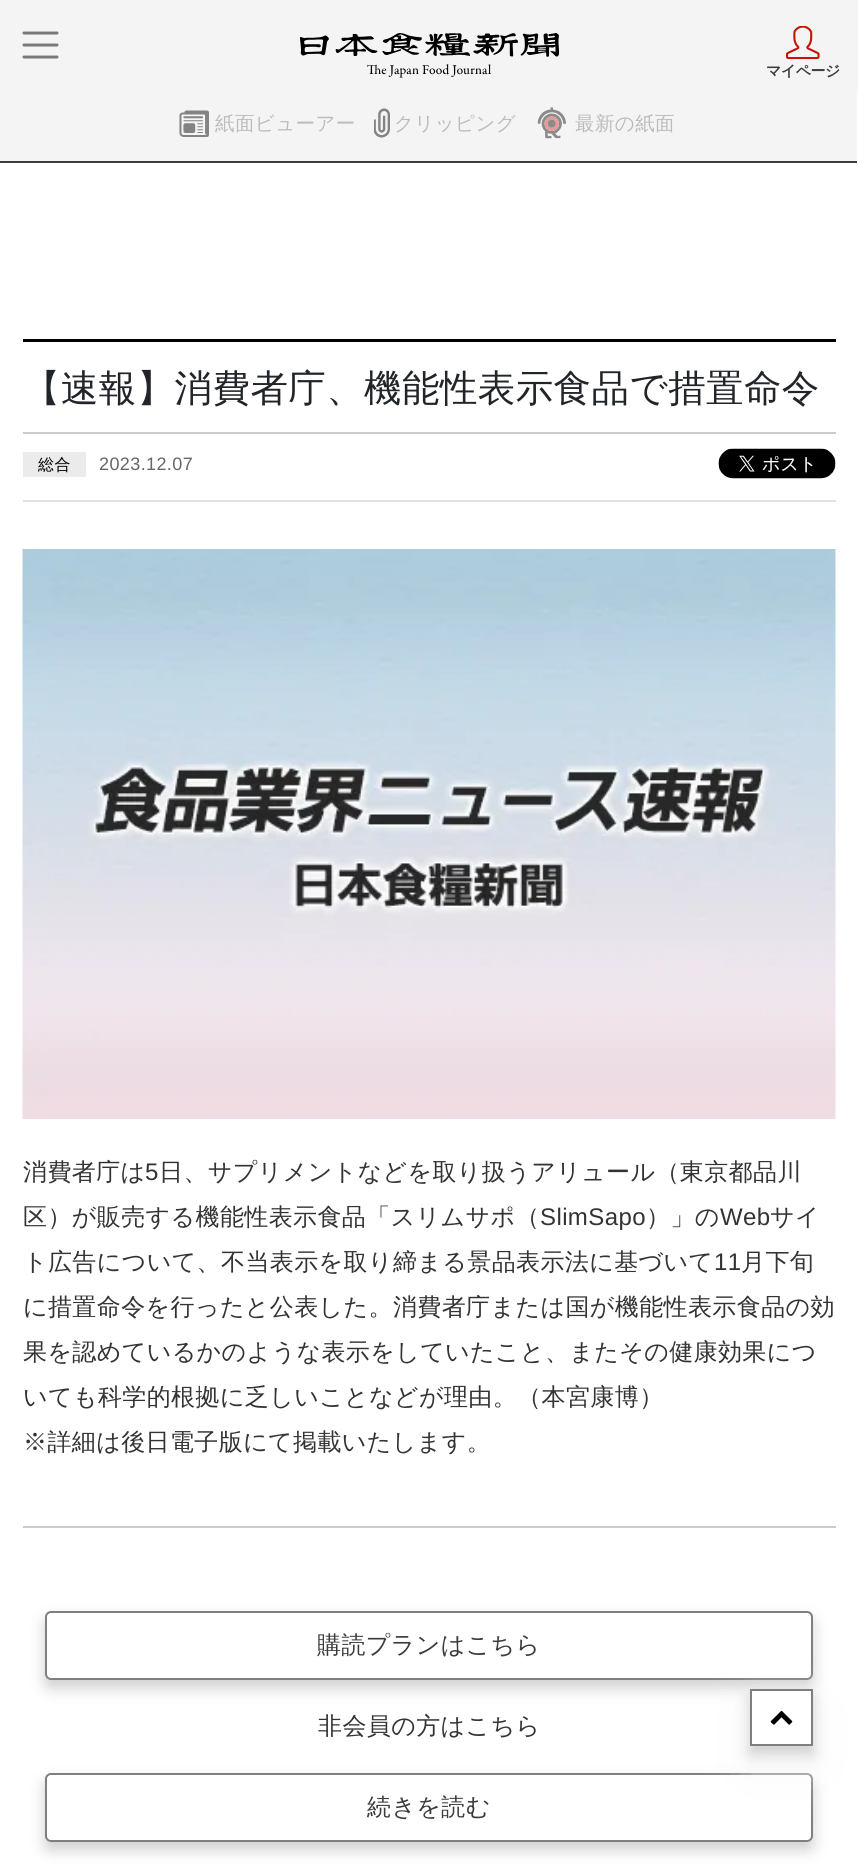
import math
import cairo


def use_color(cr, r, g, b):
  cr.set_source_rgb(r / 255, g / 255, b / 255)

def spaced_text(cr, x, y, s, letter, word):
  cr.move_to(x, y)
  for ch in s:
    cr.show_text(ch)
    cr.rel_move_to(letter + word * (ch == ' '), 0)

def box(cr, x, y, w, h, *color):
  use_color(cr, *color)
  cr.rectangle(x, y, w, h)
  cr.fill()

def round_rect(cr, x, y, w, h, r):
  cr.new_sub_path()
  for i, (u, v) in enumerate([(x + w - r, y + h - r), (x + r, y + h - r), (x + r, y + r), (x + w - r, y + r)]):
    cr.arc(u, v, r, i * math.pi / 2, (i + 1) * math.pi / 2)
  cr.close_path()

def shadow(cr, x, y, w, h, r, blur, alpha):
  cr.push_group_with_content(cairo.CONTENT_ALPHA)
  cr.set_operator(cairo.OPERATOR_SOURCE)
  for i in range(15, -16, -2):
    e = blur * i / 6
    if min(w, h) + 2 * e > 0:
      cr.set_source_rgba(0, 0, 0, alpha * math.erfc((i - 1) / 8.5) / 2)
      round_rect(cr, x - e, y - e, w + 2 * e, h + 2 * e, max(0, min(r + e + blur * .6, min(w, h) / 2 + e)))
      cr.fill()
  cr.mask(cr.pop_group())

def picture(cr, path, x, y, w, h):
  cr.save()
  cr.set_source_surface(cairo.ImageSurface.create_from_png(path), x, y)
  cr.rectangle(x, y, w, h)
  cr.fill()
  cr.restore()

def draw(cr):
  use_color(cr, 255, 255, 255)
  cr.paint()
  box(cr, 0, 0, 858, 90, 244, 244, 244)
  cr.new_path()
  cr.move_to(24, 33)
  cr.line_to(57, 33)
  cr.move_to(24, 45)
  cr.line_to(57, 45)
  cr.move_to(24, 57)
  cr.line_to(57, 57)
  use_color(cr, 122, 122, 122)
  cr.set_line_width(3)
  cr.set_line_cap(cairo.LINE_CAP_ROUND)
  cr.stroke()
  picture(cr, "img_01.png", 300, 33, 260, 45)
  picture(cr, "img_02.png", 786, 26, 34, 33)
  box(cr, 0, 90, 857, 71, 244, 244, 244)
  box(cr, 0, 161, 857, 2, 60, 59, 59)
  picture(cr, "img_03.png", 179, 110, 30, 27)
  picture(cr, "img_04.png", 374, 108, 16, 30)
  picture(cr, "img_05.png", 537, 107, 29, 32)
  box(cr, 23, 339, 813, 3, 0, 0, 0)
  box(cr, 23, 432, 813, 2, 204, 204, 204)
  box(cr, 23, 500, 813, 2, 222, 226, 230)
  box(cr, 23, 452, 63, 25, 235, 235, 235)
  picture(cr, "img_06.png", 718, 448, 118, 31)
  picture(cr, "img_07.png", 22, 549, 814, 570)
  box(cr, 23, 1526, 813, 2, 204, 204, 204)
  cr.save()
  cr.set_fill_rule(cairo.FILL_RULE_EVEN_ODD)
  cr.new_path()
  cr.move_to(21, 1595)
  cr.line_to(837, 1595)
  cr.line_to(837, 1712)
  cr.line_to(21, 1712)
  cr.close_path()
  cr.move_to(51, 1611)
  cr.line_to(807, 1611)
  cr.curve_to(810.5, 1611, 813, 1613.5, 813, 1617)
  cr.line_to(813, 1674)
  cr.curve_to(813, 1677.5, 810.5, 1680, 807, 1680)
  cr.line_to(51, 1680)
  cr.curve_to(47.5, 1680, 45, 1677.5, 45, 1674)
  cr.line_to(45, 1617)
  cr.curve_to(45, 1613.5, 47.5, 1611, 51, 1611)
  cr.close_path()
  cr.clip()
  use_color(cr, 207, 207, 207)
  shadow(cr, 45, 1619, 768, 69, 6, 7.5, 1)
  cr.restore()
  round_rect(cr, 46, 1612, 766, 67, 5)
  use_color(cr, 127, 127, 127)
  cr.set_line_width(2)
  cr.set_line_cap(cairo.LINE_CAP_BUTT)
  cr.stroke()
  cr.save()
  cr.set_fill_rule(cairo.FILL_RULE_EVEN_ODD)
  cr.new_path()
  cr.move_to(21, 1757)
  cr.line_to(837, 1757)
  cr.line_to(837, 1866)
  cr.line_to(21, 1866)
  cr.close_path()
  cr.move_to(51, 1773)
  cr.line_to(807, 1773)
  cr.curve_to(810.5, 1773, 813, 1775.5, 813, 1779)
  cr.line_to(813, 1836)
  cr.curve_to(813, 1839.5, 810.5, 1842, 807, 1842)
  cr.line_to(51, 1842)
  cr.curve_to(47.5, 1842, 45, 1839.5, 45, 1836)
  cr.line_to(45, 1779)
  cr.curve_to(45, 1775.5, 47.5, 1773, 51, 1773)
  cr.close_path()
  cr.clip()
  use_color(cr, 207, 207, 207)
  shadow(cr, 45, 1781, 768, 69, 6, 7.5, 1)
  cr.restore()
  round_rect(cr, 46, 1774, 766, 67, 5)
  cr.stroke()
  use_color(cr, 247, 247, 248)
  shadow(cr, 750, 1709, 63, 57, 0, 22.5, 1)
  use_color(cr, 207, 207, 207)
  shadow(cr, 750, 1697, 63, 57, 0, 7.5, 1)
  use_color(cr, 255, 255, 255)
  cr.rectangle(751, 1690, 61, 55)
  cr.fill_preserve()
  use_color(cr, 127, 127, 127)
  cr.stroke()
  picture(cr, "img_08.png", 770, 1710, 23, 15)
  cr.select_font_face("WenQuanYi Zen Hei", cairo.FONT_SLANT_NORMAL, cairo.FONT_WEIGHT_BOLD)
  cr.set_font_size(15)
  use_color(cr, 60, 59, 59)
  spaced_text(cr, 766, 76, "マイページ", -0.5, 0)
  cr.select_font_face("WenQuanYi Zen Hei Medium")
  cr.set_font_size(19.5)
  use_color(cr, 188, 188, 188)
  spaced_text(cr, 215, 130, "紙面ビューアー", 0.4, 0)
  spaced_text(cr, 394, 130, "クリッピング", 0.4, 0)
  spaced_text(cr, 575, 130, "最新の紙面", 0.4, 0)
  cr.set_font_size(37.5)
  use_color(cr, 33, 37, 41)
  spaced_text(cr, 23, 401, "【速報】消費者庁、機能性表示食品で措置命令", 0.4, 0)
  cr.set_font_size(16)
  use_color(cr, 0, 0, 0)
  spaced_text(cr, 38, 470, "総合", 0.4, 0)
  cr.select_font_face("Liberation Sans")
  cr.set_font_size(18)
  use_color(cr, 102, 102, 102)
  spaced_text(cr, 99, 470, "2023.12.07", 0.4, 0)
  cr.select_font_face("WenQuanYi Zen Hei Medium")
  cr.set_font_size(24)
  use_color(cr, 51, 51, 51)
  spaced_text(cr, 23, 1180, "消費者庁は", 0.4, 0)
  cr.select_font_face("Liberation Sans")
  spaced_text(cr, 145, 1180, "5", 0.4, 0)
  cr.select_font_face("WenQuanYi Zen Hei Medium")
  spaced_text(cr, 159, 1180, "日、サプリメントなどを取り扱うアリュール（東京都品川", 0.4, 0)
  spaced_text(cr, 23, 1225, "区）が販売する機能性表示食品「スリムサポ（", 0.4, 0)
  cr.select_font_face("Liberation Sans")
  spaced_text(cr, 540, 1225, "SlimSapo", 0.4, 0)
  cr.select_font_face("WenQuanYi Zen Hei Medium")
  spaced_text(cr, 646, 1225, "）」の", 0.4, 0)
  cr.select_font_face("Liberation Sans")
  spaced_text(cr, 720, 1225, "Web", 0.4, 0)
  cr.select_font_face("WenQuanYi Zen Hei Medium")
  spaced_text(cr, 770, 1225, "サイ", 0.4, 0)
  spaced_text(cr, 23, 1270, "ト広告について、不当表示を取り締まる景品表示法に基づいて", 0.4, 0)
  cr.select_font_face("Liberation Sans")
  spaced_text(cr, 714, 1270, "11", 0.4, 0)
  cr.select_font_face("WenQuanYi Zen Hei Medium")
  spaced_text(cr, 741, 1270, "月下旬", 0.4, 0)
  spaced_text(cr, 23, 1315, "に措置命令を行ったと公表した。消費者庁または国が機能性表示食品の効", 0.4, 0)
  spaced_text(cr, 23, 1360, "果を認めているかのような表示をしていたこと、またその健康効果につ", 0.4, 0)
  spaced_text(cr, 23, 1405, "いても科学的根拠に乏しいことなどが理由。（本宮康博）", 0.4, 0)
  spaced_text(cr, 23, 1450, "※詳細は後日電子版にて掲載いたします。", 0.4, 0)
  use_color(cr, 60, 59, 59)
  spaced_text(cr, 317, 1653, "購読プランはこちら", 0.4, 0)
  use_color(cr, 51, 51, 51)
  spaced_text(cr, 318, 1734, "非会員の方はこちら", 0.4, 0)
  use_color(cr, 60, 59, 59)
  spaced_text(cr, 367, 1815, "続きを読む", 0.4, 0)


surface = cairo.ImageSurface(cairo.FORMAT_RGB24, 858, 1866)
cr = cairo.Context(surface)
options = cairo.FontOptions()
options.set_hint_metrics(cairo.HINT_METRICS_OFF)
options.set_hint_style(cairo.HINT_STYLE_NONE)
cr.set_font_options(options)
cr.set_miter_limit(4)
draw(cr)
surface.write_to_png("out.png")
